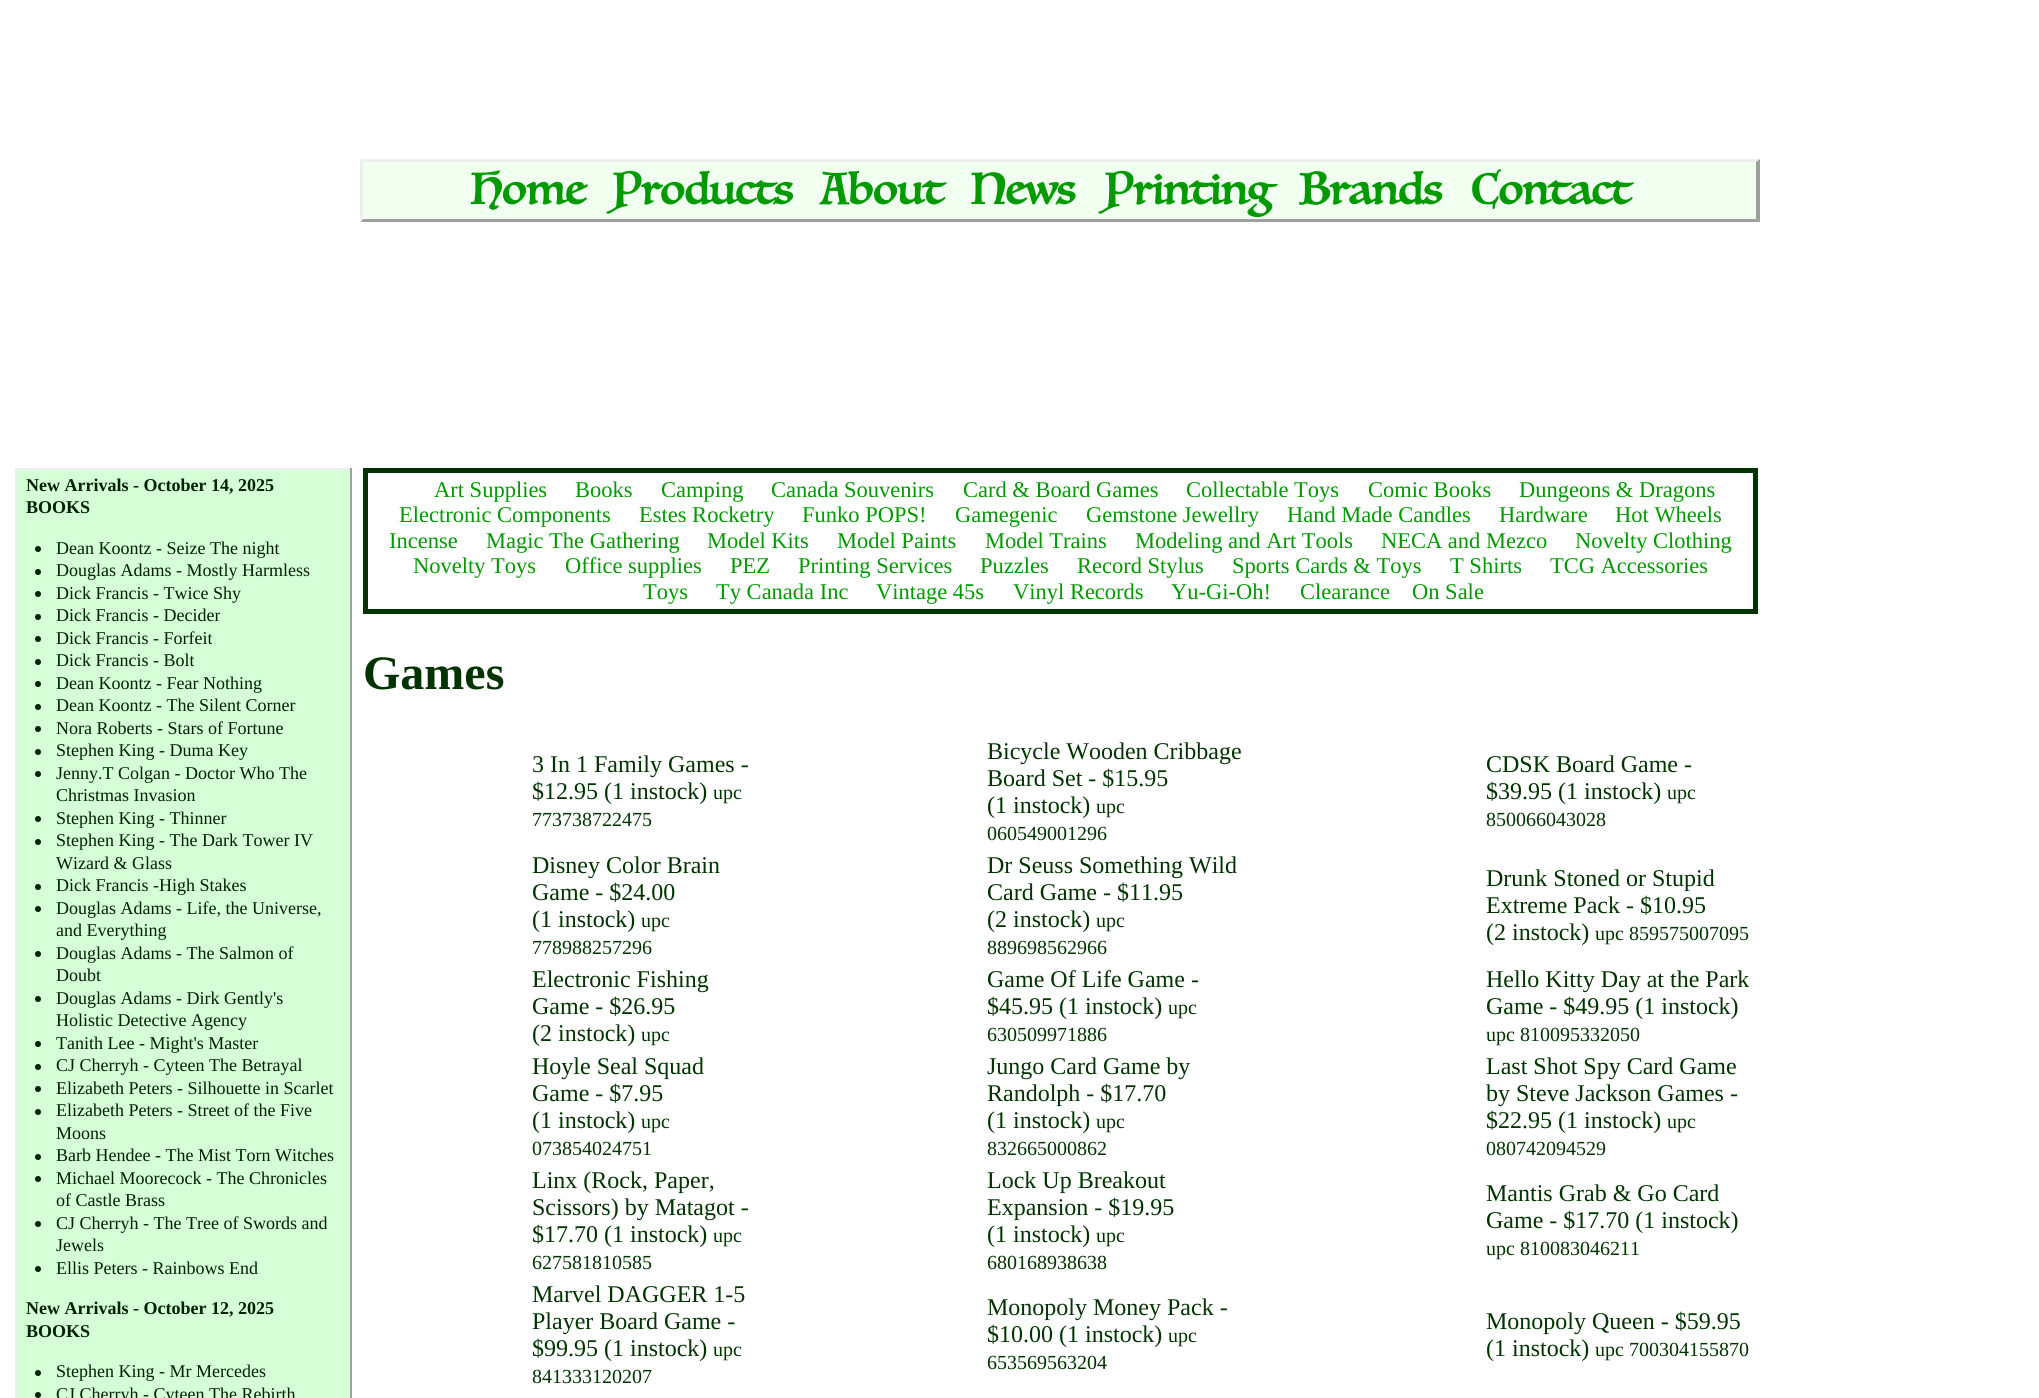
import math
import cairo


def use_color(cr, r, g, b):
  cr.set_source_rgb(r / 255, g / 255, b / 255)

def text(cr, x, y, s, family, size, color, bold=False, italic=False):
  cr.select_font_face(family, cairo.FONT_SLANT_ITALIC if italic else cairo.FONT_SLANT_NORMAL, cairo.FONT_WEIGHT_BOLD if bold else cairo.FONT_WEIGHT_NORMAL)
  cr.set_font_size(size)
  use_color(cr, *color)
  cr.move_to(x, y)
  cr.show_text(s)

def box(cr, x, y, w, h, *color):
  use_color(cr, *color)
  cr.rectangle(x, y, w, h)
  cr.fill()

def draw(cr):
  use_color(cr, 255, 255, 255)
  cr.paint()
  box(cr, 360, 159, 1400, 63, 240, 255, 240)
  use_color(cr, 238, 238, 238)
  cr.new_path()
  cr.move_to(360, 159)
  cr.line_to(1760, 159)
  cr.line_to(1756, 162)
  cr.line_to(363, 162)
  cr.close_path()
  cr.fill()
  use_color(cr, 159, 159, 159)
  cr.new_path()
  cr.move_to(1760, 159)
  cr.line_to(1760, 222)
  cr.line_to(1756, 219)
  cr.line_to(1756, 162)
  cr.close_path()
  cr.fill()
  cr.new_path()
  cr.move_to(1760, 222)
  cr.line_to(360, 222)
  cr.line_to(363, 219)
  cr.line_to(1756, 219)
  cr.close_path()
  cr.fill()
  use_color(cr, 238, 238, 238)
  cr.new_path()
  cr.move_to(360, 222)
  cr.line_to(360, 159)
  cr.line_to(363, 162)
  cr.line_to(363, 219)
  cr.close_path()
  cr.fill()
  box(cr, 17, 470, 333, 928, 213, 255, 215)
  box(cr, 15, 468, 336, 2, 238, 238, 238)
  box(cr, 350, 468, 2, 930, 159, 159, 159)
  box(cr, 15, 468, 2, 930, 238, 238, 238)
  use_color(cr, 0, 32, 0)
  cr.arc(38, 549, 3, 0, 2 * math.pi)
  cr.fill()
  cr.arc(38, 572, 3, 0, 2 * math.pi)
  cr.fill()
  cr.arc(38, 594, 3, 0, 2 * math.pi)
  cr.fill()
  cr.arc(38, 617, 3, 0, 2 * math.pi)
  cr.fill()
  cr.arc(38, 639, 3, 0, 2 * math.pi)
  cr.fill()
  cr.arc(38, 662, 3, 0, 2 * math.pi)
  cr.fill()
  cr.arc(38, 684, 3, 0, 2 * math.pi)
  cr.fill()
  cr.arc(38, 707, 3, 0, 2 * math.pi)
  cr.fill()
  cr.arc(38, 729, 3, 0, 2 * math.pi)
  cr.fill()
  cr.arc(38, 752, 3, 0, 2 * math.pi)
  cr.fill()
  cr.arc(38, 774, 3, 0, 2 * math.pi)
  cr.fill()
  cr.arc(38, 819, 3, 0, 2 * math.pi)
  cr.fill()
  cr.arc(38, 842, 3, 0, 2 * math.pi)
  cr.fill()
  cr.arc(38, 887, 3, 0, 2 * math.pi)
  cr.fill()
  cr.arc(38, 909, 3, 0, 2 * math.pi)
  cr.fill()
  cr.arc(38, 954, 3, 0, 2 * math.pi)
  cr.fill()
  cr.arc(38, 999, 3, 0, 2 * math.pi)
  cr.fill()
  cr.arc(38, 1044, 3, 0, 2 * math.pi)
  cr.fill()
  cr.arc(38, 1067, 3, 0, 2 * math.pi)
  cr.fill()
  cr.arc(38, 1089, 3, 0, 2 * math.pi)
  cr.fill()
  cr.arc(38, 1112, 3, 0, 2 * math.pi)
  cr.fill()
  cr.arc(38, 1157, 3, 0, 2 * math.pi)
  cr.fill()
  cr.arc(38, 1179, 3, 0, 2 * math.pi)
  cr.fill()
  cr.arc(38, 1224, 3, 0, 2 * math.pi)
  cr.fill()
  cr.arc(38, 1269, 3, 0, 2 * math.pi)
  cr.fill()
  cr.arc(38, 1373, 3, 0, 2 * math.pi)
  cr.fill()
  cr.arc(38, 1395, 3, 0, 2 * math.pi)
  cr.fill()
  cr.rectangle(365.5, 470.5, 1390, 141)
  use_color(cr, 0, 51, 0)
  cr.set_line_width(5)
  cr.stroke()
  text(cr, 471, 204, "Home", "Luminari", 42, (0, 153, 0), bold=True)
  text(cr, 613, 204, "Products", "Luminari", 42, (0, 153, 0), bold=True)
  text(cr, 821, 204, "About", "Luminari", 42, (0, 153, 0), bold=True)
  text(cr, 971, 204, "News", "Luminari", 42, (0, 153, 0), bold=True)
  text(cr, 1105, 204, "Printing", "Luminari", 42, (0, 153, 0), bold=True)
  text(cr, 1299, 204, "Brands", "Luminari", 42, (0, 153, 0), bold=True)
  text(cr, 1471, 204, "Contact", "Luminari", 42, (0, 153, 0), bold=True)
  text(cr, 26, 491, "New Arrivals - October 14, 2025", "Liberation Serif", 18, (0, 32, 0), bold=True)
  text(cr, 26, 513, "BOOKS", "Liberation Serif", 18, (0, 32, 0), bold=True)
  text(cr, 56, 554, "Dean Koontz - Seize The night", "Liberation Serif", 18, (0, 32, 0))
  text(cr, 56, 576, "Douglas Adams - Mostly Harmless", "Liberation Serif", 18, (0, 32, 0))
  text(cr, 56, 599, "Dick Francis - Twice Shy", "Liberation Serif", 18, (0, 32, 0))
  text(cr, 56, 621, "Dick Francis - Decider", "Liberation Serif", 18, (0, 32, 0))
  text(cr, 56, 644, "Dick Francis - Forfeit", "Liberation Serif", 18, (0, 32, 0))
  text(cr, 56, 666, "Dick Francis - Bolt", "Liberation Serif", 18, (0, 32, 0))
  text(cr, 56, 689, "Dean Koontz - Fear Nothing", "Liberation Serif", 18, (0, 32, 0))
  text(cr, 56, 711, "Dean Koontz - The Silent Corner", "Liberation Serif", 18, (0, 32, 0))
  text(cr, 56, 734, "Nora Roberts - Stars of Fortune", "Liberation Serif", 18, (0, 32, 0))
  text(cr, 56, 756, "Stephen King - Duma Key", "Liberation Serif", 18, (0, 32, 0))
  text(cr, 56, 779, "Jenny.T Colgan - Doctor Who The", "Liberation Serif", 18, (0, 32, 0))
  text(cr, 56, 801, "Christmas Invasion", "Liberation Serif", 18, (0, 32, 0))
  text(cr, 56, 824, "Stephen King - Thinner", "Liberation Serif", 18, (0, 32, 0))
  text(cr, 56, 846, "Stephen King - The Dark Tower IV", "Liberation Serif", 18, (0, 32, 0))
  text(cr, 56, 869, "Wizard & Glass", "Liberation Serif", 18, (0, 32, 0))
  text(cr, 56, 891, "Dick Francis -High Stakes", "Liberation Serif", 18, (0, 32, 0))
  text(cr, 56, 914, "Douglas Adams - Life, the Universe,", "Liberation Serif", 18, (0, 32, 0))
  text(cr, 56, 936, "and Everything", "Liberation Serif", 18, (0, 32, 0))
  text(cr, 56, 959, "Douglas Adams - The Salmon of", "Liberation Serif", 18, (0, 32, 0))
  text(cr, 56, 981, "Doubt", "Liberation Serif", 18, (0, 32, 0))
  text(cr, 56, 1004, "Douglas Adams - Dirk Gently's", "Liberation Serif", 18, (0, 32, 0))
  text(cr, 56, 1026, "Holistic Detective Agency", "Liberation Serif", 18, (0, 32, 0))
  text(cr, 56, 1049, "Tanith Lee - Might's Master", "Liberation Serif", 18, (0, 32, 0))
  text(cr, 56, 1071, "CJ Cherryh - Cyteen The Betrayal", "Liberation Serif", 18, (0, 32, 0))
  text(cr, 56, 1094, "Elizabeth Peters - Silhouette in Scarlet", "Liberation Serif", 18, (0, 32, 0))
  text(cr, 56, 1116, "Elizabeth Peters - Street of the Five", "Liberation Serif", 18, (0, 32, 0))
  text(cr, 56, 1139, "Moons", "Liberation Serif", 18, (0, 32, 0))
  text(cr, 56, 1161, "Barb Hendee - The Mist Torn Witches", "Liberation Serif", 18, (0, 32, 0))
  text(cr, 56, 1184, "Michael Moorecock - The Chronicles", "Liberation Serif", 18, (0, 32, 0))
  text(cr, 56, 1206, "of Castle Brass", "Liberation Serif", 18, (0, 32, 0))
  text(cr, 56, 1229, "CJ Cherryh - The Tree of Swords and", "Liberation Serif", 18, (0, 32, 0))
  text(cr, 56, 1251, "Jewels", "Liberation Serif", 18, (0, 32, 0))
  text(cr, 56, 1274, "Ellis Peters - Rainbows End", "Liberation Serif", 18, (0, 32, 0))
  text(cr, 26, 1314, "New Arrivals - October 12, 2025", "Liberation Serif", 18, (0, 32, 0), bold=True)
  text(cr, 26, 1337, "BOOKS", "Liberation Serif", 18, (0, 32, 0), bold=True)
  text(cr, 56, 1377, "Stephen King - Mr Mercedes", "Liberation Serif", 18, (0, 32, 0))
  text(cr, 56, 1400, "CJ Cherryh - Cyteen The Rebirth", "Liberation Serif", 18, (0, 32, 0))
  text(cr, 434, 497, "Art Supplies", "Liberation Serif", 22.5, (0, 153, 0))
  text(cr, 575, 497, "Books", "Liberation Serif", 22.5, (0, 153, 0))
  text(cr, 661, 497, "Camping", "Liberation Serif", 22.5, (0, 153, 0))
  text(cr, 771, 497, "Canada Souvenirs", "Liberation Serif", 22.5, (0, 153, 0))
  text(cr, 963, 497, "Card & Board Games", "Liberation Serif", 22.5, (0, 153, 0))
  text(cr, 1186, 497, "Collectable Toys", "Liberation Serif", 22.5, (0, 153, 0))
  text(cr, 1368, 497, "Comic Books", "Liberation Serif", 22.5, (0, 153, 0))
  text(cr, 1519, 497, "Dungeons & Dragons", "Liberation Serif", 22.5, (0, 153, 0))
  text(cr, 399, 522, "Electronic Components", "Liberation Serif", 22.5, (0, 153, 0))
  text(cr, 639, 522, "Estes Rocketry", "Liberation Serif", 22.5, (0, 153, 0))
  text(cr, 802, 522, "Funko POPS!", "Liberation Serif", 22.5, (0, 153, 0))
  text(cr, 955, 522, "Gamegenic", "Liberation Serif", 22.5, (0, 153, 0))
  text(cr, 1086, 522, "Gemstone Jewellry", "Liberation Serif", 22.5, (0, 153, 0))
  text(cr, 1287, 522, "Hand Made Candles", "Liberation Serif", 22.5, (0, 153, 0))
  text(cr, 1499, 522, "Hardware", "Liberation Serif", 22.5, (0, 153, 0))
  text(cr, 1615, 522, "Hot Wheels", "Liberation Serif", 22.5, (0, 153, 0))
  text(cr, 389, 548, "Incense", "Liberation Serif", 22.5, (0, 153, 0))
  text(cr, 486, 548, "Magic The Gathering", "Liberation Serif", 22.5, (0, 153, 0))
  text(cr, 707, 548, "Model Kits", "Liberation Serif", 22.5, (0, 153, 0))
  text(cr, 837, 548, "Model Paints", "Liberation Serif", 22.5, (0, 153, 0))
  text(cr, 985, 548, "Model Trains", "Liberation Serif", 22.5, (0, 153, 0))
  text(cr, 1135, 548, "Modeling and Art Tools", "Liberation Serif", 22.5, (0, 153, 0))
  text(cr, 1381, 548, "NECA and Mezco", "Liberation Serif", 22.5, (0, 153, 0))
  text(cr, 1575, 548, "Novelty Clothing", "Liberation Serif", 22.5, (0, 153, 0))
  text(cr, 413, 573, "Novelty Toys", "Liberation Serif", 22.5, (0, 153, 0))
  text(cr, 565, 573, "Office supplies", "Liberation Serif", 22.5, (0, 153, 0))
  text(cr, 730, 573, "PEZ", "Liberation Serif", 22.5, (0, 153, 0))
  text(cr, 798, 573, "Printing Services", "Liberation Serif", 22.5, (0, 153, 0))
  text(cr, 980, 573, "Puzzles", "Liberation Serif", 22.5, (0, 153, 0))
  text(cr, 1077, 573, "Record Stylus", "Liberation Serif", 22.5, (0, 153, 0))
  text(cr, 1232, 573, "Sports Cards & Toys", "Liberation Serif", 22.5, (0, 153, 0))
  text(cr, 1450, 573, "T Shirts", "Liberation Serif", 22.5, (0, 153, 0))
  text(cr, 1550, 573, "TCG Accessories", "Liberation Serif", 22.5, (0, 153, 0))
  text(cr, 643, 599, "Toys", "Liberation Serif", 22.5, (0, 153, 0))
  text(cr, 716, 599, "Ty Canada Inc", "Liberation Serif", 22.5, (0, 153, 0))
  text(cr, 876, 599, "Vintage 45s", "Liberation Serif", 22.5, (0, 153, 0))
  text(cr, 1013, 599, "Vinyl Records", "Liberation Serif", 22.5, (0, 153, 0))
  text(cr, 1171, 599, "Yu-Gi-Oh!", "Liberation Serif", 22.5, (0, 153, 0))
  text(cr, 1300, 599, "Clearance", "Liberation Serif", 22.5, (0, 153, 0))
  text(cr, 1412, 599, "On Sale", "Liberation Serif", 22.5, (0, 153, 0))
  text(cr, 363, 689, "Games", "Liberation Serif", 48, (0, 51, 0), bold=True)
  text(cr, 532, 772, "3 In 1 Family Games -", "Liberation Serif", 24, (0, 51, 0))
  text(cr, 532, 799, "$12.95 (1 instock)", "Liberation Serif", 24, (0, 51, 0))
  text(cr, 713, 799, "upc", "Liberation Serif", 20, (0, 51, 0))
  text(cr, 532, 826, "773738722475", "Liberation Serif", 20, (0, 51, 0))
  text(cr, 987, 759, "Bicycle Wooden Cribbage", "Liberation Serif", 24, (0, 51, 0))
  text(cr, 987, 786, "Board Set - $15.95", "Liberation Serif", 24, (0, 51, 0))
  text(cr, 987, 813, "(1 instock)", "Liberation Serif", 24, (0, 51, 0))
  text(cr, 1096, 813, "upc", "Liberation Serif", 20, (0, 51, 0))
  text(cr, 987, 840, "060549001296", "Liberation Serif", 20, (0, 51, 0))
  text(cr, 1486, 772, "CDSK Board Game -", "Liberation Serif", 24, (0, 51, 0))
  text(cr, 1486, 799, "$39.95 (1 instock)", "Liberation Serif", 24, (0, 51, 0))
  text(cr, 1667, 799, "upc", "Liberation Serif", 20, (0, 51, 0))
  text(cr, 1486, 826, "850066043028", "Liberation Serif", 20, (0, 51, 0))
  text(cr, 532, 873, "Disney Color Brain", "Liberation Serif", 24, (0, 51, 0))
  text(cr, 532, 900, "Game - $24.00", "Liberation Serif", 24, (0, 51, 0))
  text(cr, 532, 927, "(1 instock)", "Liberation Serif", 24, (0, 51, 0))
  text(cr, 641, 927, "upc", "Liberation Serif", 20, (0, 51, 0))
  text(cr, 532, 954, "778988257296", "Liberation Serif", 20, (0, 51, 0))
  text(cr, 987, 873, "Dr Seuss Something Wild", "Liberation Serif", 24, (0, 51, 0))
  text(cr, 987, 900, "Card Game - $11.95", "Liberation Serif", 24, (0, 51, 0))
  text(cr, 987, 927, "(2 instock)", "Liberation Serif", 24, (0, 51, 0))
  text(cr, 1096, 927, "upc", "Liberation Serif", 20, (0, 51, 0))
  text(cr, 987, 954, "889698562966", "Liberation Serif", 20, (0, 51, 0))
  text(cr, 1486, 886, "Drunk Stoned or Stupid", "Liberation Serif", 24, (0, 51, 0))
  text(cr, 1486, 913, "Extreme Pack - $10.95", "Liberation Serif", 24, (0, 51, 0))
  text(cr, 1486, 940, "(2 instock)", "Liberation Serif", 24, (0, 51, 0))
  text(cr, 1595, 940, "upc 859575007095", "Liberation Serif", 20, (0, 51, 0))
  text(cr, 532, 987, "Electronic Fishing", "Liberation Serif", 24, (0, 51, 0))
  text(cr, 532, 1014, "Game - $26.95", "Liberation Serif", 24, (0, 51, 0))
  text(cr, 532, 1041, "(2 instock)", "Liberation Serif", 24, (0, 51, 0))
  text(cr, 641, 1041, "upc", "Liberation Serif", 20, (0, 51, 0))
  text(cr, 987, 987, "Game Of Life Game -", "Liberation Serif", 24, (0, 51, 0))
  text(cr, 987, 1014, "$45.95 (1 instock)", "Liberation Serif", 24, (0, 51, 0))
  text(cr, 1168, 1014, "upc", "Liberation Serif", 20, (0, 51, 0))
  text(cr, 987, 1041, "630509971886", "Liberation Serif", 20, (0, 51, 0))
  text(cr, 1486, 987, "Hello Kitty Day at the Park", "Liberation Serif", 24, (0, 51, 0))
  text(cr, 1486, 1014, "Game - $49.95 (1 instock)", "Liberation Serif", 24, (0, 51, 0))
  text(cr, 1486, 1041, "upc 810095332050", "Liberation Serif", 20, (0, 51, 0))
  text(cr, 532, 1074, "Hoyle Seal Squad", "Liberation Serif", 24, (0, 51, 0))
  text(cr, 532, 1101, "Game - $7.95", "Liberation Serif", 24, (0, 51, 0))
  text(cr, 532, 1128, "(1 instock)", "Liberation Serif", 24, (0, 51, 0))
  text(cr, 641, 1128, "upc", "Liberation Serif", 20, (0, 51, 0))
  text(cr, 532, 1155, "073854024751", "Liberation Serif", 20, (0, 51, 0))
  text(cr, 987, 1074, "Jungo Card Game by", "Liberation Serif", 24, (0, 51, 0))
  text(cr, 987, 1101, "Randolph - $17.70", "Liberation Serif", 24, (0, 51, 0))
  text(cr, 987, 1128, "(1 instock)", "Liberation Serif", 24, (0, 51, 0))
  text(cr, 1096, 1128, "upc", "Liberation Serif", 20, (0, 51, 0))
  text(cr, 987, 1155, "832665000862", "Liberation Serif", 20, (0, 51, 0))
  text(cr, 1486, 1074, "Last Shot Spy Card Game", "Liberation Serif", 24, (0, 51, 0))
  text(cr, 1486, 1101, "by Steve Jackson Games -", "Liberation Serif", 24, (0, 51, 0))
  text(cr, 1486, 1128, "$22.95 (1 instock)", "Liberation Serif", 24, (0, 51, 0))
  text(cr, 1667, 1128, "upc", "Liberation Serif", 20, (0, 51, 0))
  text(cr, 1486, 1155, "080742094529", "Liberation Serif", 20, (0, 51, 0))
  text(cr, 532, 1188, "Linx (Rock, Paper,", "Liberation Serif", 24, (0, 51, 0))
  text(cr, 532, 1215, "Scissors) by Matagot -", "Liberation Serif", 24, (0, 51, 0))
  text(cr, 532, 1242, "$17.70 (1 instock)", "Liberation Serif", 24, (0, 51, 0))
  text(cr, 713, 1242, "upc", "Liberation Serif", 20, (0, 51, 0))
  text(cr, 532, 1269, "627581810585", "Liberation Serif", 20, (0, 51, 0))
  text(cr, 987, 1188, "Lock Up Breakout", "Liberation Serif", 24, (0, 51, 0))
  text(cr, 987, 1215, "Expansion - $19.95", "Liberation Serif", 24, (0, 51, 0))
  text(cr, 987, 1242, "(1 instock)", "Liberation Serif", 24, (0, 51, 0))
  text(cr, 1096, 1242, "upc", "Liberation Serif", 20, (0, 51, 0))
  text(cr, 987, 1269, "680168938638", "Liberation Serif", 20, (0, 51, 0))
  text(cr, 1486, 1201, "Mantis Grab & Go Card", "Liberation Serif", 24, (0, 51, 0))
  text(cr, 1486, 1228, "Game - $17.70 (1 instock)", "Liberation Serif", 24, (0, 51, 0))
  text(cr, 1486, 1255, "upc 810083046211", "Liberation Serif", 20, (0, 51, 0))
  text(cr, 532, 1302, "Marvel DAGGER 1-5", "Liberation Serif", 24, (0, 51, 0))
  text(cr, 532, 1329, "Player Board Game -", "Liberation Serif", 24, (0, 51, 0))
  text(cr, 532, 1356, "$99.95 (1 instock)", "Liberation Serif", 24, (0, 51, 0))
  text(cr, 713, 1356, "upc", "Liberation Serif", 20, (0, 51, 0))
  text(cr, 532, 1383, "841333120207", "Liberation Serif", 20, (0, 51, 0))
  text(cr, 987, 1315, "Monopoly Money Pack -", "Liberation Serif", 24, (0, 51, 0))
  text(cr, 987, 1342, "$10.00 (1 instock)", "Liberation Serif", 24, (0, 51, 0))
  text(cr, 1168, 1342, "upc", "Liberation Serif", 20, (0, 51, 0))
  text(cr, 987, 1369, "653569563204", "Liberation Serif", 20, (0, 51, 0))
  text(cr, 1486, 1329, "Monopoly Queen - $59.95", "Liberation Serif", 24, (0, 51, 0))
  text(cr, 1486, 1356, "(1 instock)", "Liberation Serif", 24, (0, 51, 0))
  text(cr, 1595, 1356, "upc 700304155870", "Liberation Serif", 20, (0, 51, 0))


surface = cairo.ImageSurface(cairo.FORMAT_RGB24, 2039, 1398)
cr = cairo.Context(surface)
options = cairo.FontOptions()
options.set_hint_metrics(cairo.HINT_METRICS_OFF)
options.set_hint_style(cairo.HINT_STYLE_NONE)
cr.set_font_options(options)
cr.set_miter_limit(4)
draw(cr)
surface.write_to_png("out.png")
